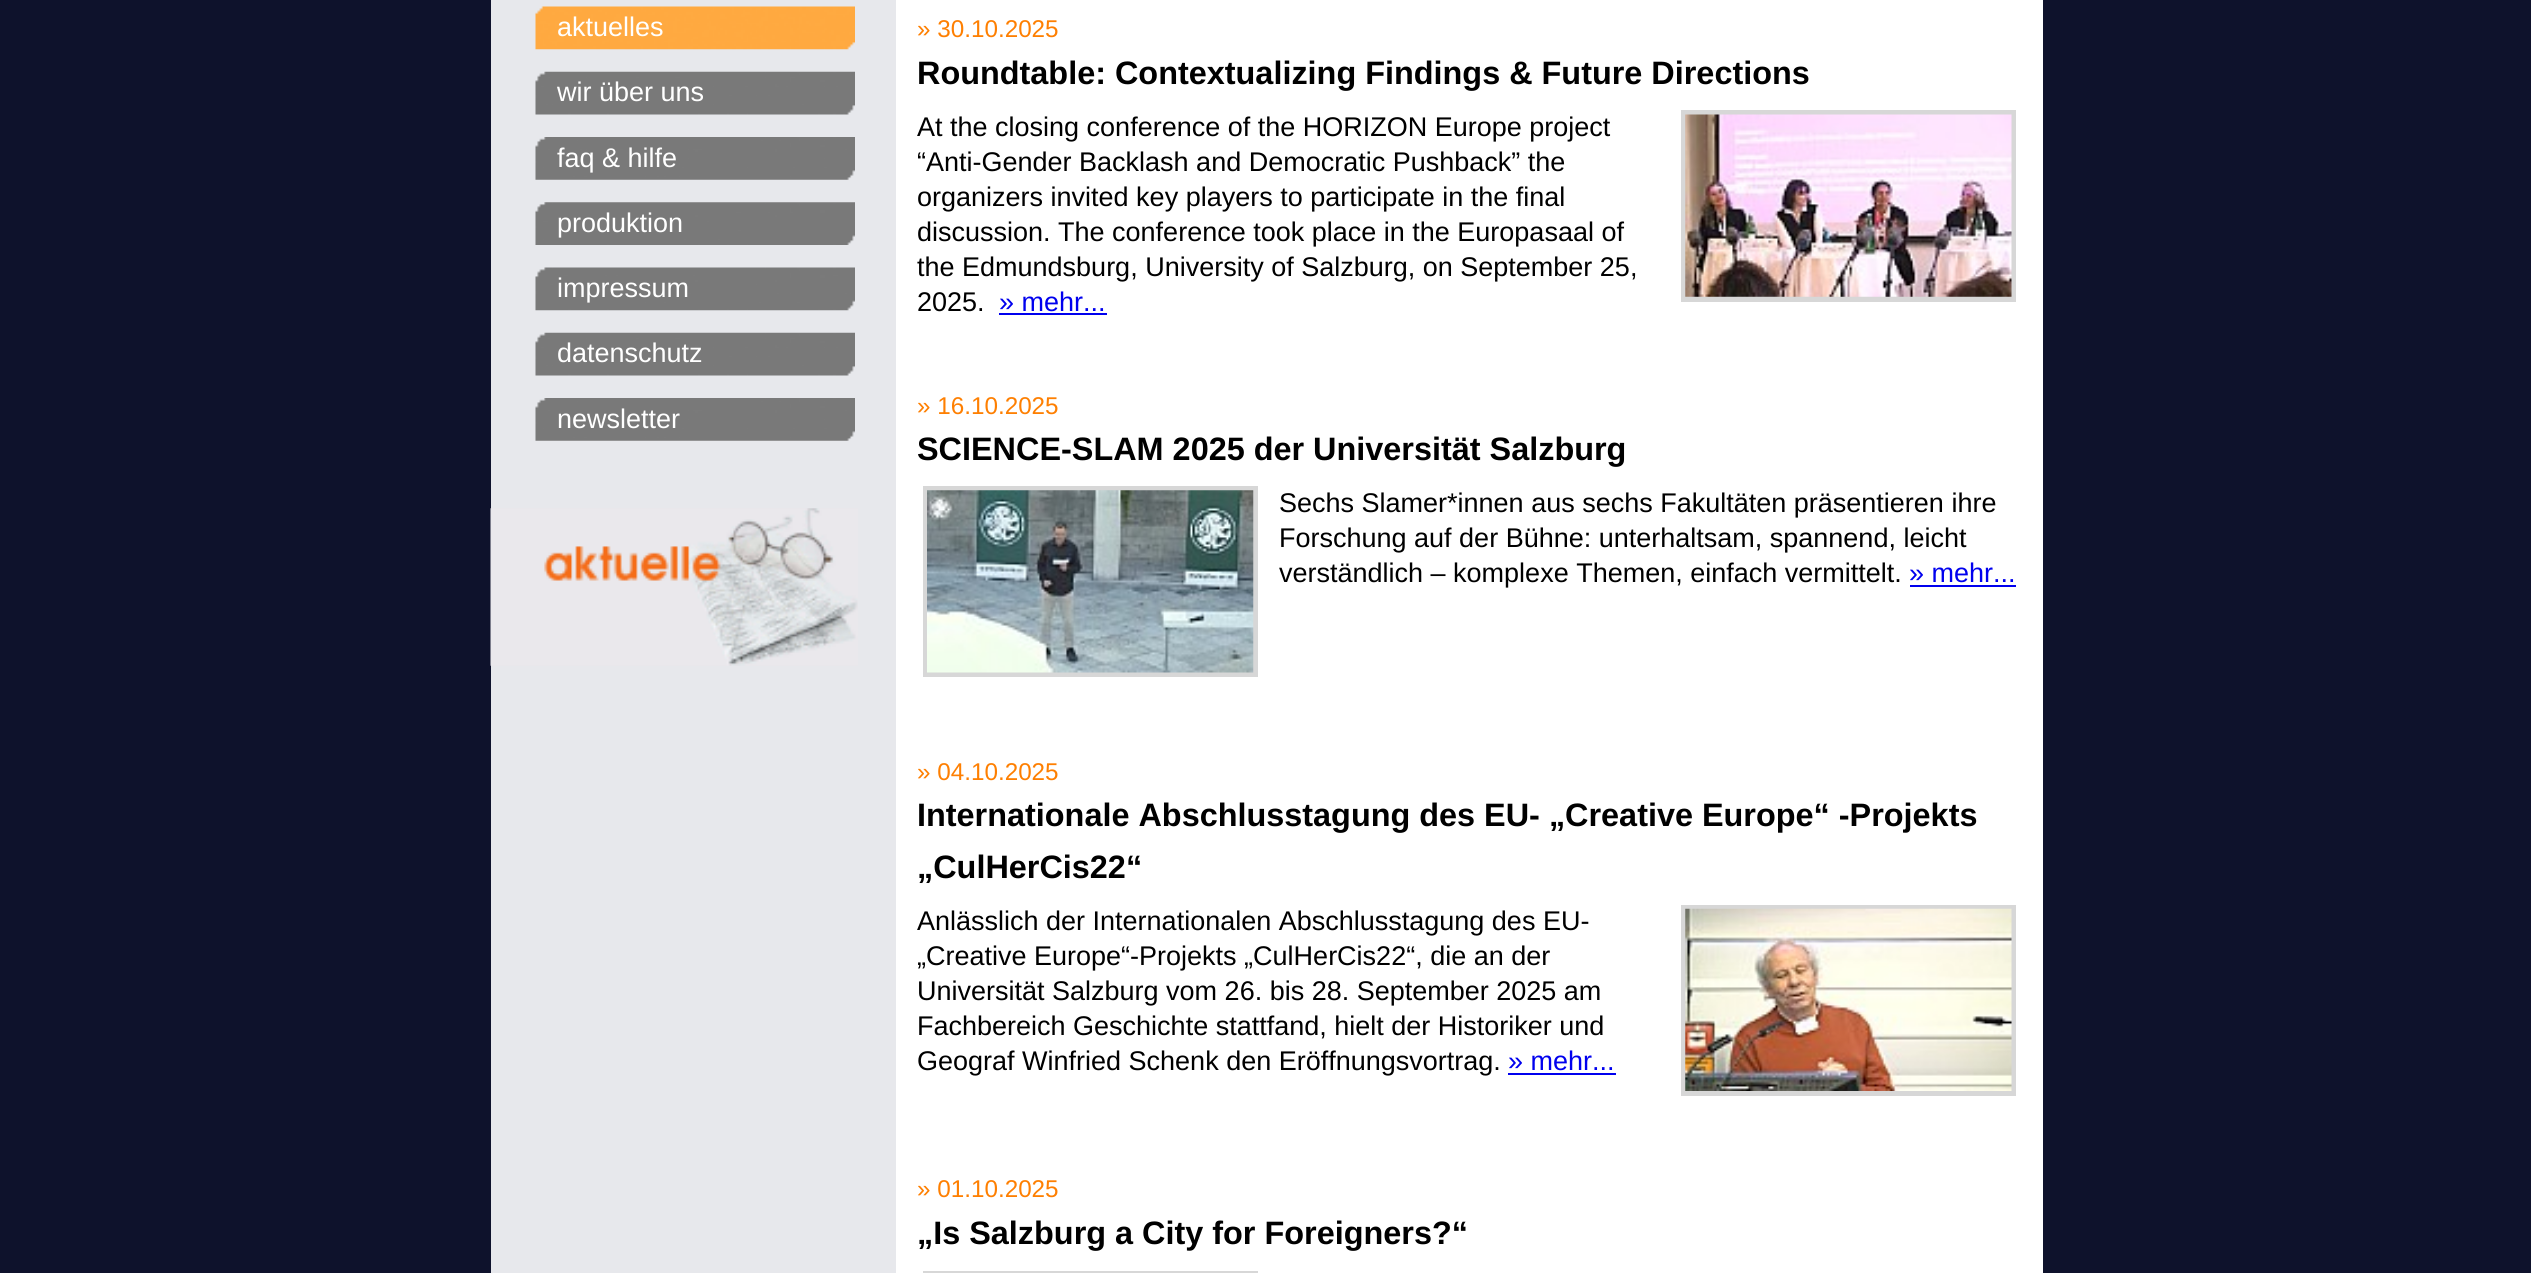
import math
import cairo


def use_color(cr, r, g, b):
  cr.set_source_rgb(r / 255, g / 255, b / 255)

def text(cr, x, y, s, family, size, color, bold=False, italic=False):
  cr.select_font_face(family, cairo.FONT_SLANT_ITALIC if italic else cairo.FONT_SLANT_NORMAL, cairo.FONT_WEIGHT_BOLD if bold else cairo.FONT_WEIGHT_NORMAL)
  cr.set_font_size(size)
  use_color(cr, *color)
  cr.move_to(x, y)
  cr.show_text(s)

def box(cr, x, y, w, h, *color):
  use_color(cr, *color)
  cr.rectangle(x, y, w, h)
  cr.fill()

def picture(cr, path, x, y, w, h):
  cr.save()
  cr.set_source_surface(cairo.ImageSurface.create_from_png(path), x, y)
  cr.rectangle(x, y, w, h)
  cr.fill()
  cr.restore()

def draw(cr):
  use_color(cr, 14, 18, 44)
  cr.paint()
  box(cr, 491, 0, 405, 1273, 231, 232, 236)
  picture(cr, "img_01.png", 535, 6, 320, 44)
  picture(cr, "img_02.png", 535, 71, 320, 44)
  picture(cr, "img_03.png", 535, 137, 320, 43)
  picture(cr, "img_04.png", 535, 202, 320, 43)
  picture(cr, "img_05.png", 535, 267, 320, 44)
  picture(cr, "img_02.png", 535, 332, 320, 44)
  picture(cr, "img_03.png", 535, 398, 320, 43)
  picture(cr, "img_06.png", 490, 508, 368, 158)
  box(cr, 896, 0, 1147, 1273, 255, 255, 255)
  box(cr, 1681, 110, 335, 192, 215, 215, 215)
  picture(cr, "img_07.png", 1685, 114, 327, 183)
  box(cr, 999, 313, 108, 2, 0, 0, 238)
  box(cr, 923, 486, 335, 191, 215, 215, 215)
  picture(cr, "img_08.png", 927, 490, 327, 183)
  box(cr, 1910, 585, 106, 2, 0, 0, 238)
  box(cr, 1681, 905, 335, 191, 215, 215, 215)
  picture(cr, "img_09.png", 1685, 908, 327, 183)
  box(cr, 1508, 1073, 108, 2, 0, 0, 238)
  box(cr, 923, 1271, 335, 2, 215, 215, 215)
  text(cr, 557, 36, "aktuelles", "Liberation Sans", 27, (255, 255, 255))
  text(cr, 557, 101, "wir über uns", "Liberation Sans", 27, (255, 255, 255))
  text(cr, 557, 167, "faq & hilfe", "Liberation Sans", 27, (255, 255, 255))
  text(cr, 557, 232, "produktion", "Liberation Sans", 27, (255, 255, 255))
  text(cr, 557, 297, "impressum", "Liberation Sans", 27, (255, 255, 255))
  text(cr, 557, 362, "datenschutz", "Liberation Sans", 27, (255, 255, 255))
  text(cr, 557, 428, "newsletter", "Liberation Sans", 27, (255, 255, 255))
  text(cr, 917, 37, "» 30.10.2025", "Liberation Sans", 24.25, (254, 127, 1))
  text(cr, 917, 84, "Roundtable: Contextualizing Findings & Future Directions", "Liberation Sans", 32.4, (0, 0, 0), bold=True)
  text(cr, 917, 136, "At the closing conference of the HORIZON Europe project", "Liberation Sans", 27, (0, 0, 0))
  text(cr, 917, 171, "“Anti-Gender Backlash and Democratic Pushback” the", "Liberation Sans", 27, (0, 0, 0))
  text(cr, 917, 206, "organizers invited key players to participate in the final", "Liberation Sans", 27, (0, 0, 0))
  text(cr, 917, 241, "discussion. The conference took place in the Europasaal of", "Liberation Sans", 27, (0, 0, 0))
  text(cr, 917, 276, "the Edmundsburg, University of Salzburg, on September 25,", "Liberation Sans", 27, (0, 0, 0))
  text(cr, 917, 311, "2025.", "Liberation Sans", 27, (0, 0, 0))
  text(cr, 999, 311, "» mehr...", "Liberation Sans", 27, (0, 0, 238))
  text(cr, 917, 414, "» 16.10.2025", "Liberation Sans", 24.25, (254, 127, 1))
  text(cr, 917, 460, "SCIENCE-SLAM 2025 der Universität Salzburg", "Liberation Sans", 32.4, (0, 0, 0), bold=True)
  text(cr, 1279, 512, "Sechs Slamer*innen aus sechs Fakultäten präsentieren ihre", "Liberation Sans", 27, (0, 0, 0))
  text(cr, 1279, 547, "Forschung auf der Bühne: unterhaltsam, spannend, leicht", "Liberation Sans", 27, (0, 0, 0))
  text(cr, 1279, 582, "verständlich – komplexe Themen, einfach vermittelt.", "Liberation Sans", 27, (0, 0, 0))
  text(cr, 1909, 582, "» mehr...", "Liberation Sans", 27, (0, 0, 238))
  text(cr, 917, 780, "» 04.10.2025", "Liberation Sans", 24.25, (254, 127, 1))
  text(cr, 917, 826, "Internationale Abschlusstagung des EU- „Creative Europe“ -Projekts", "Liberation Sans", 32.4, (0, 0, 0), bold=True)
  text(cr, 917, 878, "„CulHerCis22“", "Liberation Sans", 32.4, (0, 0, 0), bold=True)
  text(cr, 917, 930, "Anlässlich der Internationalen Abschlusstagung des EU-", "Liberation Sans", 27, (0, 0, 0))
  text(cr, 917, 965, "„Creative Europe“-Projekts „CulHerCis22“, die an der", "Liberation Sans", 27, (0, 0, 0))
  text(cr, 917, 1000, "Universität Salzburg vom 26. bis 28. September 2025 am", "Liberation Sans", 27, (0, 0, 0))
  text(cr, 917, 1035, "Fachbereich Geschichte stattfand, hielt der Historiker und", "Liberation Sans", 27, (0, 0, 0))
  text(cr, 917, 1070, "Geograf Winfried Schenk den Eröffnungsvortrag.", "Liberation Sans", 27, (0, 0, 0))
  text(cr, 1508, 1070, "» mehr...", "Liberation Sans", 27, (0, 0, 238))
  text(cr, 917, 1197, "» 01.10.2025", "Liberation Sans", 24.25, (254, 127, 1))
  text(cr, 917, 1244, "„Is Salzburg a City for Foreigners?“", "Liberation Sans", 32.4, (0, 0, 0), bold=True)


surface = cairo.ImageSurface(cairo.FORMAT_RGB24, 2531, 1273)
cr = cairo.Context(surface)
options = cairo.FontOptions()
options.set_hint_metrics(cairo.HINT_METRICS_OFF)
options.set_hint_style(cairo.HINT_STYLE_NONE)
cr.set_font_options(options)
cr.set_miter_limit(4)
draw(cr)
surface.write_to_png("out.png")
